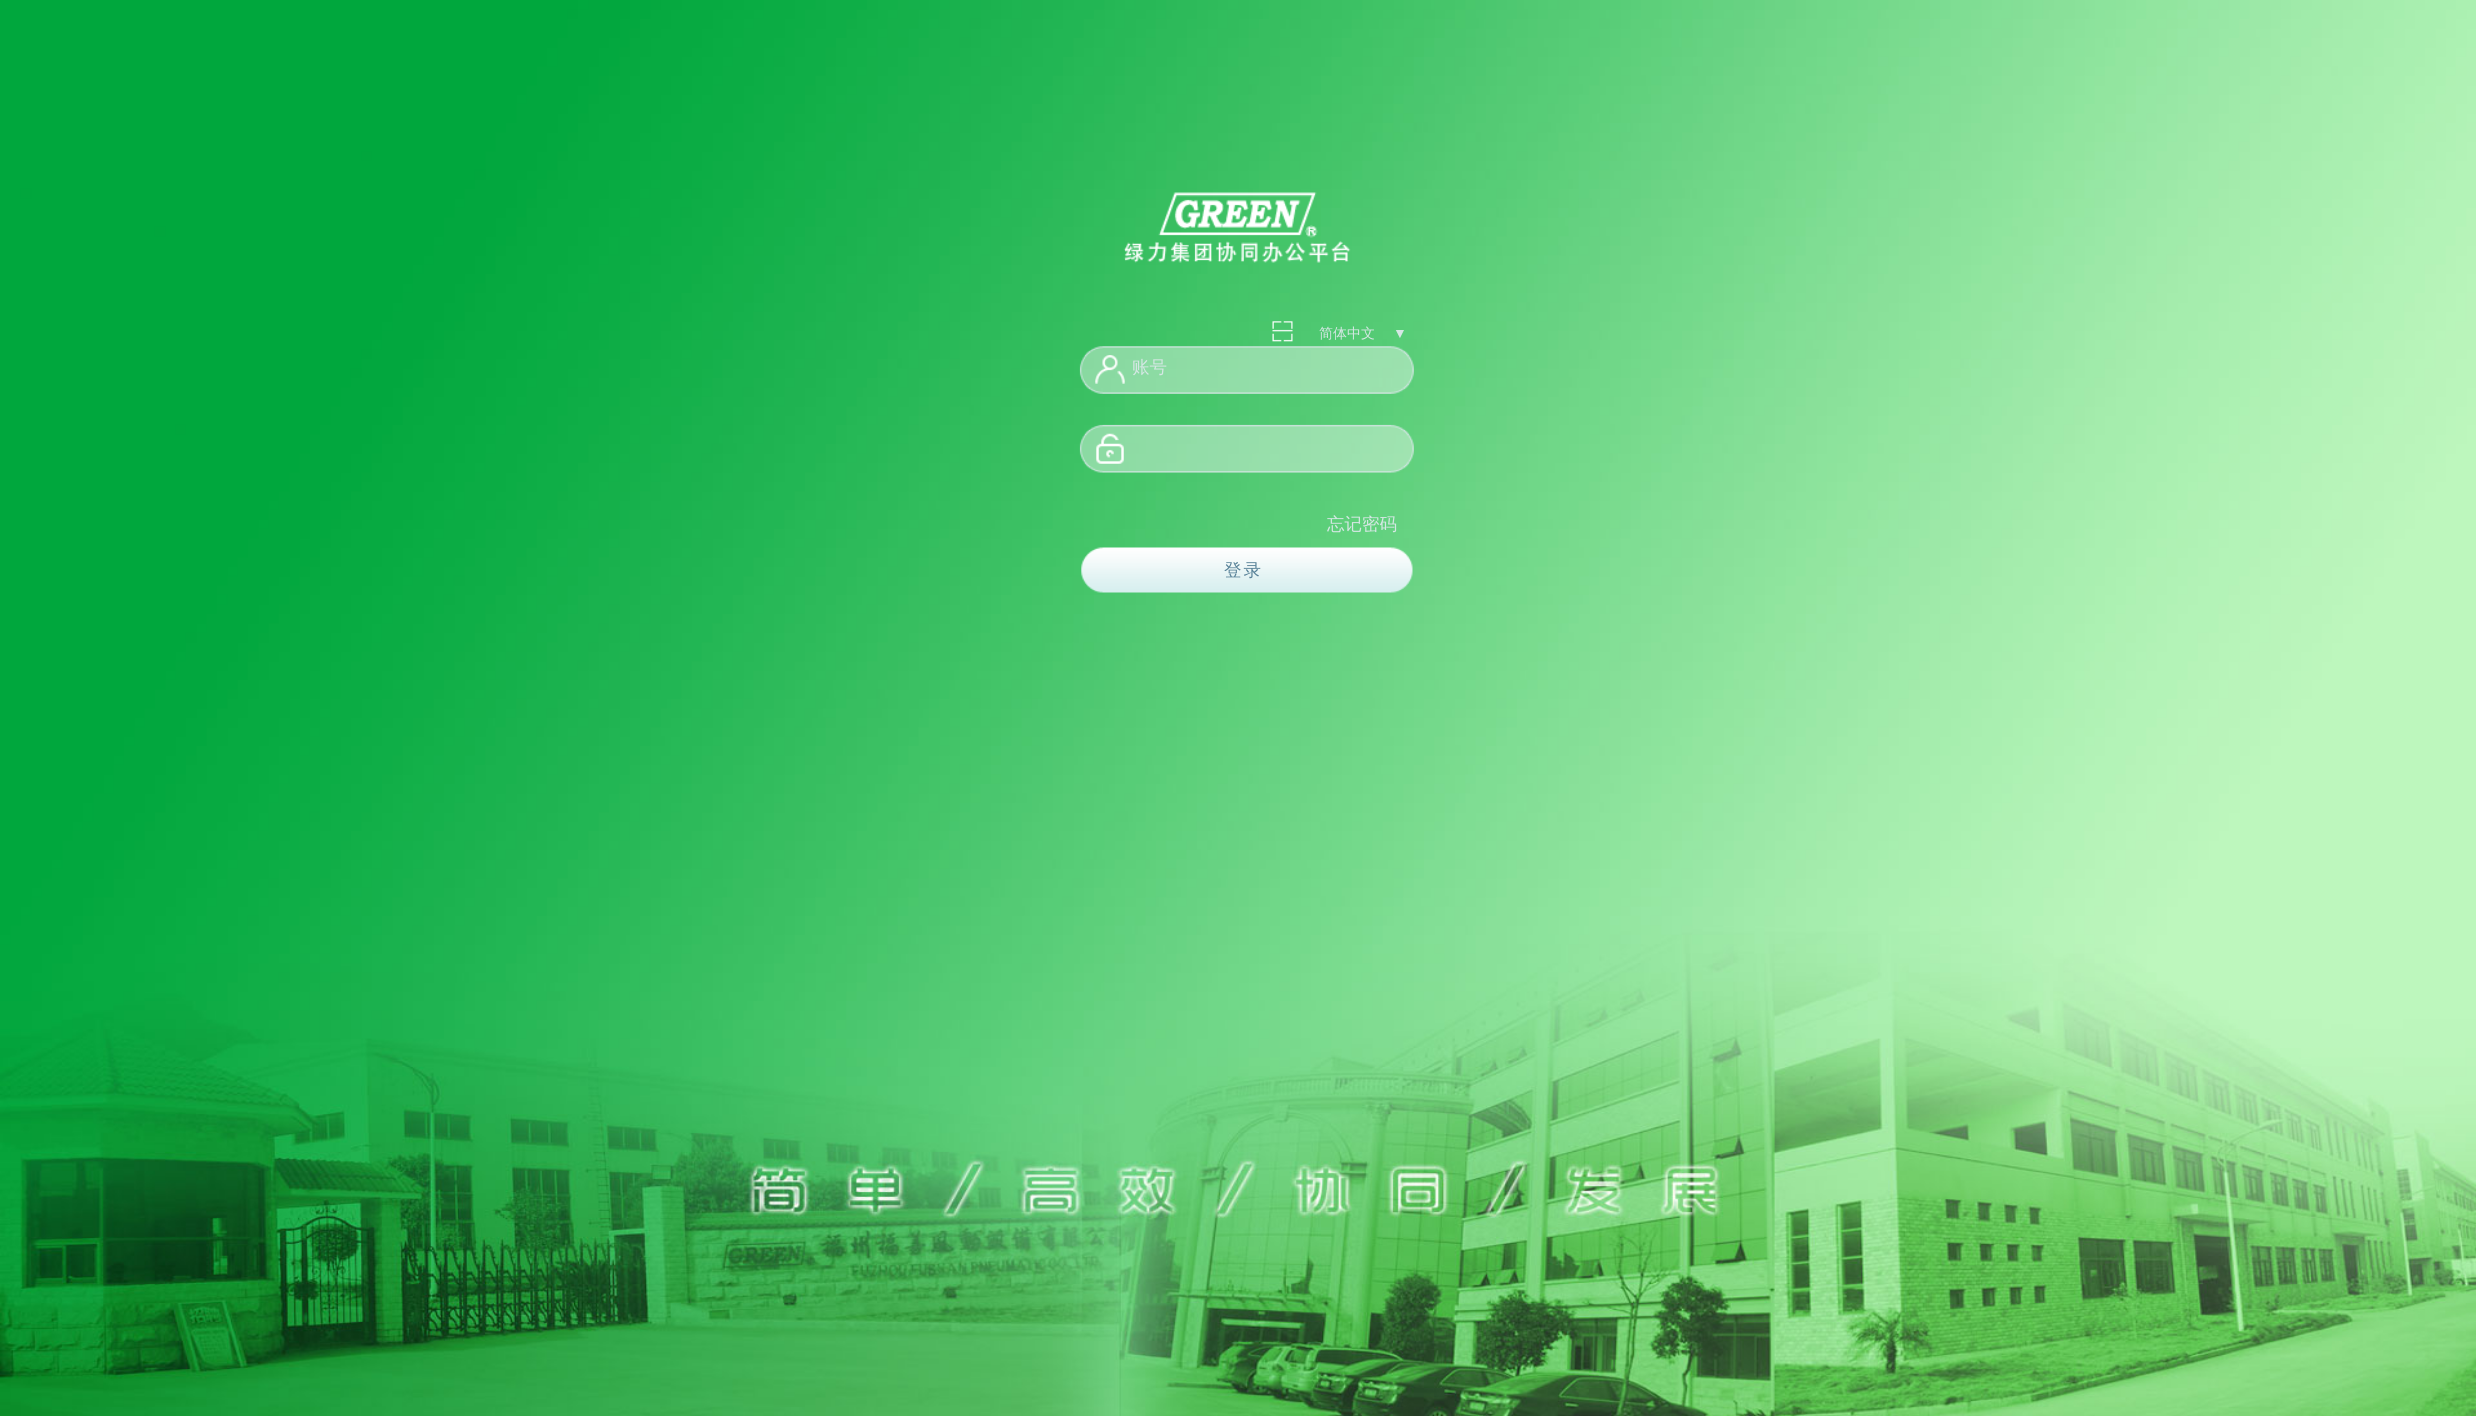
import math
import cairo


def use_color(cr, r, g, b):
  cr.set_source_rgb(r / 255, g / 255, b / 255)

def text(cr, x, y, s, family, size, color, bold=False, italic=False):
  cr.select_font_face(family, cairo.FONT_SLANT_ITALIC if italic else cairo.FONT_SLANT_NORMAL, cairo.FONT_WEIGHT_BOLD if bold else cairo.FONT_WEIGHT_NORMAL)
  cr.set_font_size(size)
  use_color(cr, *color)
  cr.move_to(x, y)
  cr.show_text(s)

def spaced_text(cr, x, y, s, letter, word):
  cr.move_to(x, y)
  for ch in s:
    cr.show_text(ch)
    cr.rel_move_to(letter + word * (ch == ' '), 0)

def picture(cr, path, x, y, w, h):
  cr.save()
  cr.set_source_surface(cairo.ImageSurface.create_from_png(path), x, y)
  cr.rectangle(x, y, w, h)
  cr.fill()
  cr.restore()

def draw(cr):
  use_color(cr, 255, 255, 255)
  cr.paint()
  picture(cr, "img_01.png", 0, 0, 2476, 1416)
  picture(cr, "img_02.png", 1123, 192, 228, 71)
  picture(cr, "img_03.png", 1272, 321, 21, 21)
  picture(cr, "img_04.png", 1079, 346, 335, 48)
  picture(cr, "img_05.png", 1095, 355, 30, 29)
  picture(cr, "img_06.png", 1079, 424, 335, 49)
  picture(cr, "img_07.png", 1096, 433, 28, 31)
  picture(cr, "img_08.png", 1081, 547, 332, 46)
  text(cr, 1319, 338, "简体中文", "WenQuanYi Zen Hei Medium", 14, (213, 231, 228))
  text(cr, 1393, 338, "▼", "Liberation Serif", 14, (213, 231, 228))
  text(cr, 1132, 373, "账号", "WenQuanYi Zen Hei Medium", 17.5, (213, 231, 228))
  text(cr, 1327, 530, "忘记密码", "WenQuanYi Zen Hei Medium", 17.5, (213, 231, 228))
  use_color(cr, 87, 129, 151)
  spaced_text(cr, 1224, 576, "登录", 2, 0)


surface = cairo.ImageSurface(cairo.FORMAT_RGB24, 2476, 1416)
cr = cairo.Context(surface)
options = cairo.FontOptions()
options.set_hint_metrics(cairo.HINT_METRICS_OFF)
options.set_hint_style(cairo.HINT_STYLE_NONE)
cr.set_font_options(options)
cr.set_miter_limit(4)
draw(cr)
surface.write_to_png("out.png")
